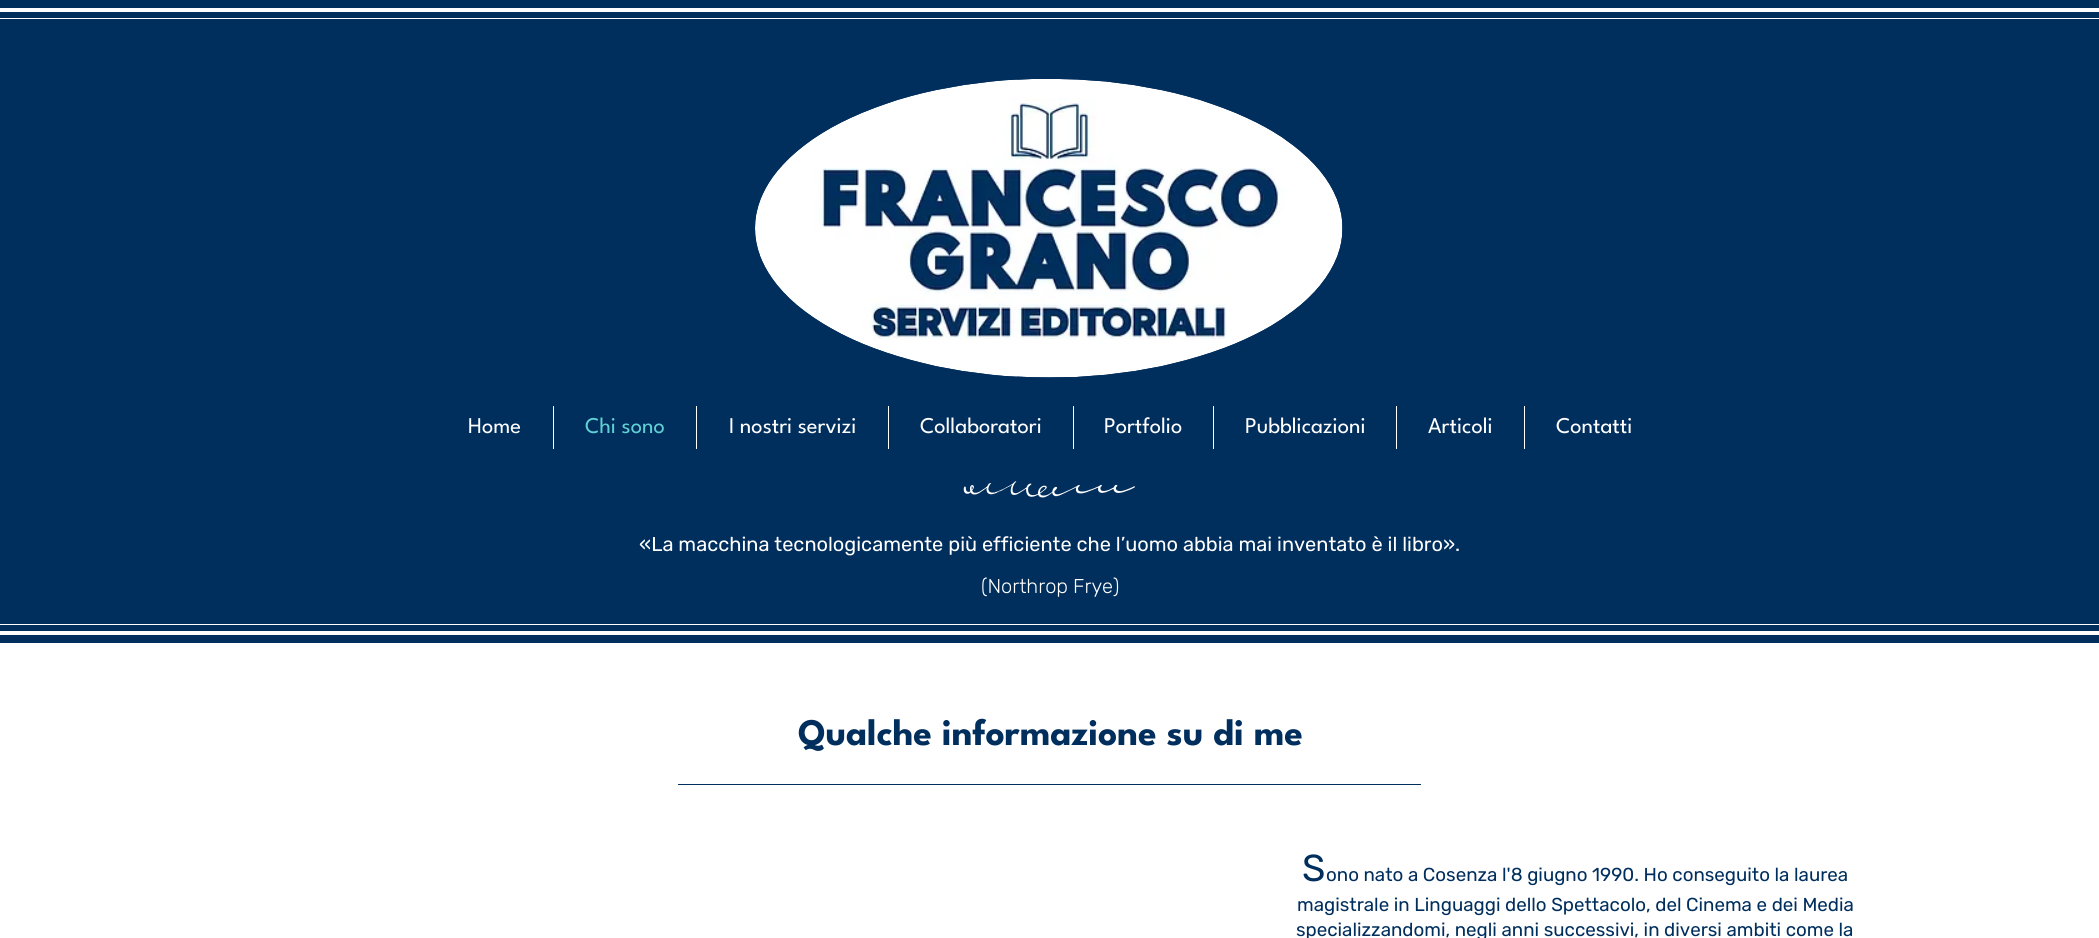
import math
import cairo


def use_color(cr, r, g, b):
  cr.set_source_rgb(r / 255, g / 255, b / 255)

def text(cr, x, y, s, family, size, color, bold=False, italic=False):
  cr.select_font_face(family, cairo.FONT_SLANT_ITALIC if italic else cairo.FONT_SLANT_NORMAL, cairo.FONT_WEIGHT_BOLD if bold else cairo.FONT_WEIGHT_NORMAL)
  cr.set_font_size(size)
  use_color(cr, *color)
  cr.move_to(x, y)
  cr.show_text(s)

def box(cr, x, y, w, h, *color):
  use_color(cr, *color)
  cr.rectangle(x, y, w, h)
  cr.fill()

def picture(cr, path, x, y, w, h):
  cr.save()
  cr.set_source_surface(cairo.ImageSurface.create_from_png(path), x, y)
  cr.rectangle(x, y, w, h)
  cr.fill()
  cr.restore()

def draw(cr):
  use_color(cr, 255, 255, 255)
  cr.paint()
  box(cr, 0, 0, 2099, 643, 0, 46, 93)
  box(cr, 0, 8, 2099, 4, 255, 255, 255)
  box(cr, 0, 631, 2099, 4, 255, 255, 255)
  box(cr, 0, 18, 2099, 1, 255, 255, 255)
  box(cr, 0, 624, 2099, 1, 255, 255, 255)
  picture(cr, "img_01.png", 755, 79, 588, 299)
  box(cr, 553, 406, 1, 43, 255, 255, 255)
  box(cr, 696, 406, 1, 43, 255, 255, 255)
  box(cr, 888, 406, 1, 43, 255, 255, 255)
  box(cr, 1073, 406, 1, 43, 255, 255, 255)
  box(cr, 1213, 406, 1, 43, 255, 255, 255)
  box(cr, 1396, 406, 1, 43, 255, 255, 255)
  box(cr, 1524, 406, 1, 43, 255, 255, 255)
  picture(cr, "img_02.png", 963, 481, 172, 17)
  box(cr, 678, 784, 743, 1, 0, 46, 93)
  text(cr, 468, 433, "Home", "League Spartan", 22.5, (255, 255, 255))
  text(cr, 585, 433, "Chi sono", "League Spartan", 22.5, (97, 208, 212))
  text(cr, 729, 433, "I nostri servizi", "League Spartan", 22.5, (255, 255, 255))
  text(cr, 920, 433, "Collaboratori", "League Spartan", 22.5, (255, 255, 255))
  text(cr, 1104, 433, "Portfolio", "League Spartan", 22.5, (255, 255, 255))
  text(cr, 1245, 433, "Pubblicazioni", "League Spartan", 22.5, (255, 255, 255))
  text(cr, 1428, 433, "Articoli", "League Spartan", 22.5, (255, 255, 255))
  text(cr, 1556, 433, "Contatti", "League Spartan", 22.5, (255, 255, 255))
  text(cr, 639, 551, "«La macchina tecnologicamente più efficiente che l’uomo abbia mai inventato è il libro».", "Rubik", 20, (255, 255, 255))
  text(cr, 981, 593, "(Northrop Frye)", "Rubik Light", 20, (255, 255, 255))
  text(cr, 798, 745, "Qualche informazione su di me", "League Spartan", 37.5, (0, 46, 93), bold=True)
  text(cr, 1302, 881, "S", "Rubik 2", 37.5, (0, 46, 93))
  text(cr, 1326, 881, "ono nato a Cosenza l'8 giugno 1990. Ho conseguito la laurea", "Rubik 2", 18.75, (0, 46, 93))
  text(cr, 1297, 911, "magistrale in Linguaggi dello Spettacolo, del Cinema e dei Media", "Rubik 2", 18.75, (0, 46, 93))
  text(cr, 1296, 936, "specializzandomi, negli anni successivi, in diversi ambiti come la", "Rubik 2", 18.75, (0, 46, 93))


surface = cairo.ImageSurface(cairo.FORMAT_RGB24, 2099, 938)
cr = cairo.Context(surface)
options = cairo.FontOptions()
options.set_hint_metrics(cairo.HINT_METRICS_OFF)
options.set_hint_style(cairo.HINT_STYLE_NONE)
cr.set_font_options(options)
cr.set_miter_limit(4)
draw(cr)
surface.write_to_png("out.png")
